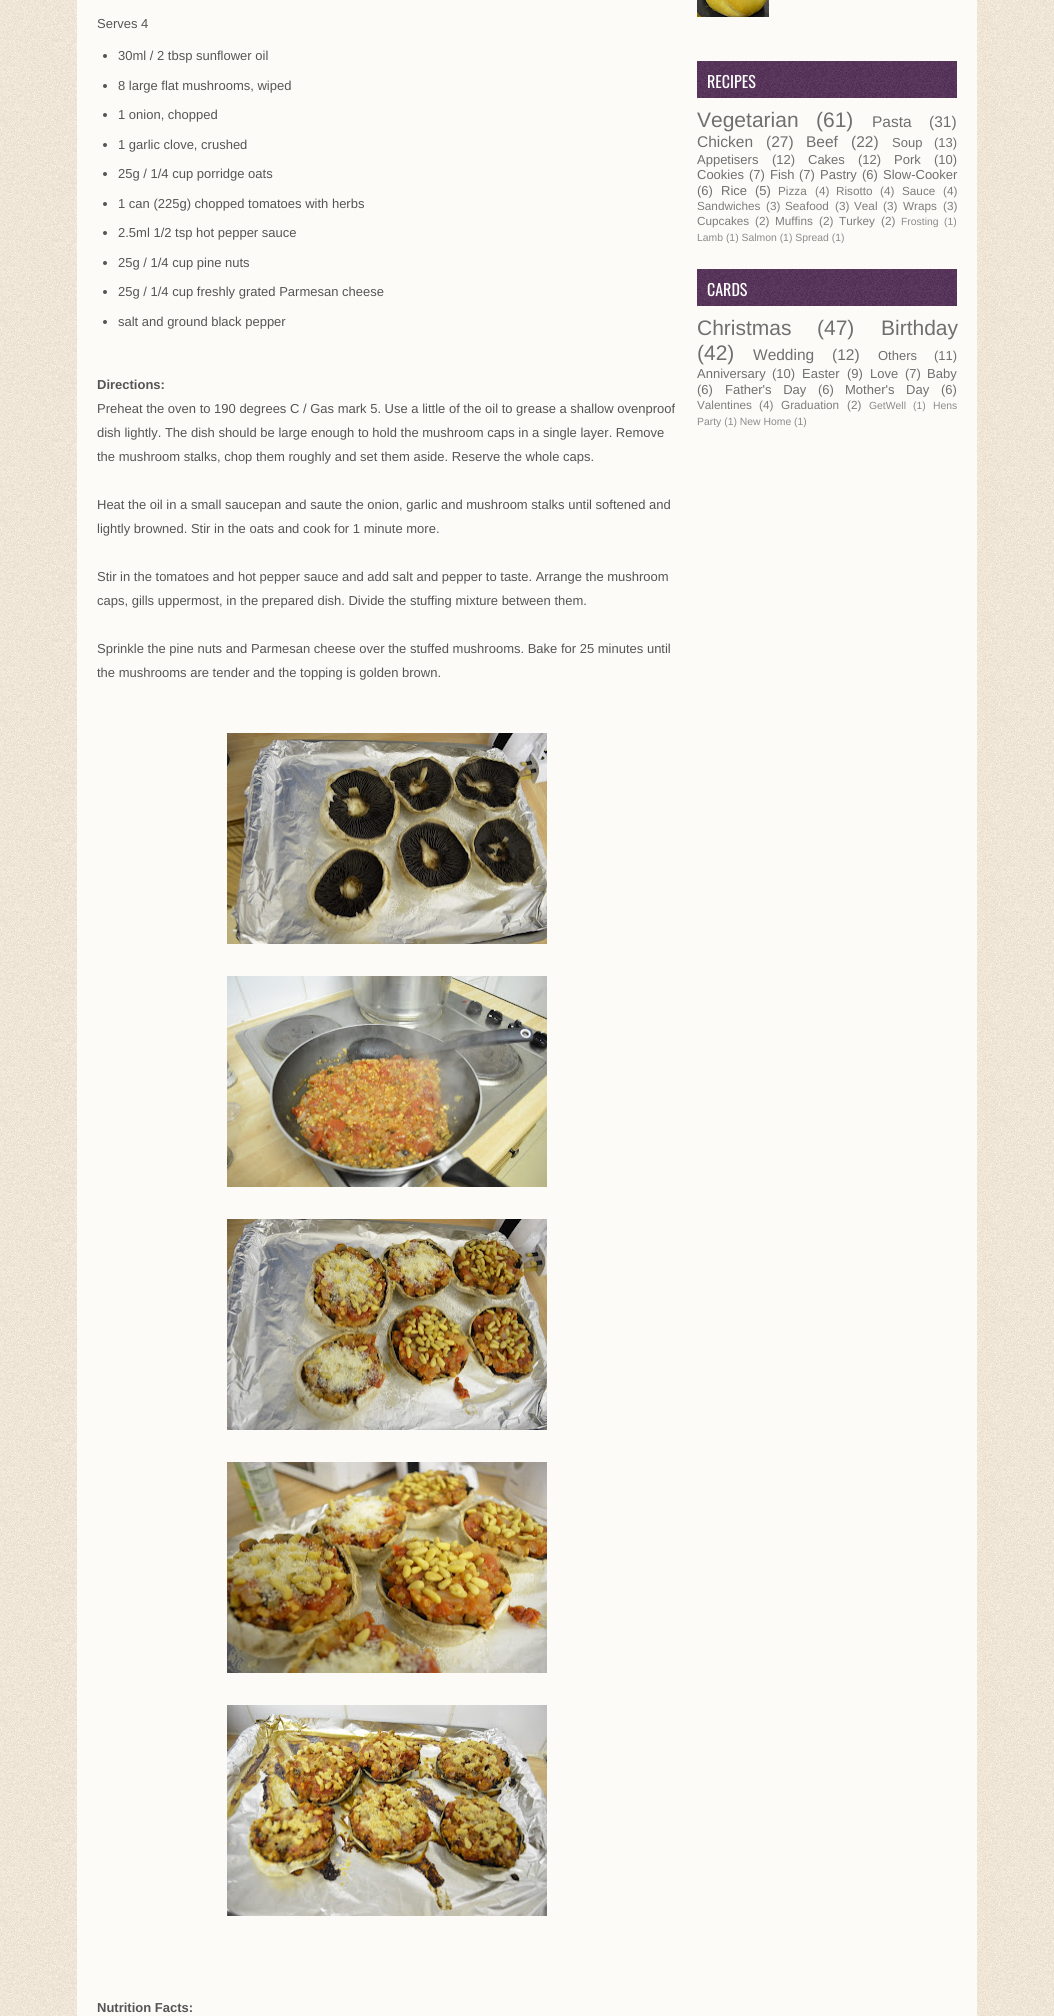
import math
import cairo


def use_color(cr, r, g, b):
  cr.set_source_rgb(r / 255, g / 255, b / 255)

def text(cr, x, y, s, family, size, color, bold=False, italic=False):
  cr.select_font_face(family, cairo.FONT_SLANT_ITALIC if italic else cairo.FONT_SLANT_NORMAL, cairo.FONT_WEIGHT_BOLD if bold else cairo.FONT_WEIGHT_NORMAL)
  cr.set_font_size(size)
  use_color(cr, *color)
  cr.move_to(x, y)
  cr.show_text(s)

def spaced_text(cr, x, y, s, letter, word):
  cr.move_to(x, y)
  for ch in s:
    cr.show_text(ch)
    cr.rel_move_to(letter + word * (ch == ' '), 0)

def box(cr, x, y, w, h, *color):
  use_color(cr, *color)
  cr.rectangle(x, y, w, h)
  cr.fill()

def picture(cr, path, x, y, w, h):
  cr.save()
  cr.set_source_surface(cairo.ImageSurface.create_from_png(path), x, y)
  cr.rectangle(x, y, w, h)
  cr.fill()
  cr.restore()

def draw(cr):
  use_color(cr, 255, 255, 255)
  cr.paint()
  picture(cr, "img_01.png", 0, 0, 1054, 2016)
  box(cr, 77, 0, 900, 2016, 253, 251, 248)
  use_color(cr, 85, 85, 85)
  cr.arc(105, 56, 2, 0, 2 * math.pi)
  cr.fill()
  cr.arc(105, 86, 2, 0, 2 * math.pi)
  cr.fill()
  cr.arc(105, 115, 2, 0, 2 * math.pi)
  cr.fill()
  cr.arc(105, 145, 2, 0, 2 * math.pi)
  cr.fill()
  cr.arc(105, 174, 2, 0, 2 * math.pi)
  cr.fill()
  cr.arc(105, 204, 2, 0, 2 * math.pi)
  cr.fill()
  cr.arc(105, 233, 2, 0, 2 * math.pi)
  cr.fill()
  cr.arc(105, 263, 2, 0, 2 * math.pi)
  cr.fill()
  cr.arc(105, 292, 2, 0, 2 * math.pi)
  cr.fill()
  cr.arc(105, 322, 2, 0, 2 * math.pi)
  cr.fill()
  picture(cr, "img_02.png", 227, 733, 320, 211)
  picture(cr, "img_03.png", 227, 976, 320, 211)
  picture(cr, "img_04.png", 227, 1219, 320, 211)
  picture(cr, "img_05.png", 227, 1462, 320, 211)
  picture(cr, "img_06.png", 227, 1705, 320, 211)
  picture(cr, "img_07.png", 697, 0, 72, 17)
  picture(cr, "img_08.png", 697, 61, 260, 37)
  picture(cr, "img_08.png", 697, 269, 260, 37)
  text(cr, 97, 28, "Serves 4", "Liberation Sans", 13, (85, 85, 85))
  text(cr, 118, 60, "30ml / 2 tbsp sunflower oil", "Liberation Sans", 13, (85, 85, 85))
  text(cr, 118, 90, "8 large flat mushrooms, wiped", "Liberation Sans", 13, (85, 85, 85))
  text(cr, 118, 119, "1 onion, chopped", "Liberation Sans", 13, (85, 85, 85))
  text(cr, 118, 149, "1 garlic clove, crushed", "Liberation Sans", 13, (85, 85, 85))
  text(cr, 118, 178, "25g / 1/4 cup porridge oats", "Liberation Sans", 13, (85, 85, 85))
  text(cr, 118, 208, "1 can (225g) chopped tomatoes with herbs", "Liberation Sans", 13, (85, 85, 85))
  text(cr, 118, 237, "2.5ml 1/2 tsp hot pepper sauce", "Liberation Sans", 13, (85, 85, 85))
  text(cr, 118, 267, "25g / 1/4 cup pine nuts", "Liberation Sans", 13, (85, 85, 85))
  text(cr, 118, 296, "25g / 1/4 cup freshly grated Parmesan cheese", "Liberation Sans", 13, (85, 85, 85))
  text(cr, 118, 326, "salt and ground black pepper", "Liberation Sans", 13, (85, 85, 85))
  text(cr, 97, 389, "Directions:", "Liberation Sans", 13, (85, 85, 85), bold=True)
  text(cr, 97, 413, "Preheat the oven to 190 degrees C / Gas mark 5. Use a little of the oil to grease a shallow ovenproof", "Liberation Sans", 13, (85, 85, 85))
  text(cr, 97, 437, "dish lightly. The dish should be large enough to hold the mushroom caps in a single layer. Remove", "Liberation Sans", 13, (85, 85, 85))
  text(cr, 97, 461, "the mushroom stalks, chop them roughly and set them aside. Reserve the whole caps.", "Liberation Sans", 13, (85, 85, 85))
  text(cr, 97, 509, "Heat the oil in a small saucepan and saute the onion, garlic and mushroom stalks until softened and", "Liberation Sans", 13, (85, 85, 85))
  text(cr, 97, 533, "lightly browned. Stir in the oats and cook for 1 minute more.", "Liberation Sans", 13, (85, 85, 85))
  text(cr, 97, 581, "Stir in the tomatoes and hot pepper sauce and add salt and pepper to taste. Arrange the mushroom", "Liberation Sans", 13, (85, 85, 85))
  text(cr, 97, 605, "caps, gills uppermost, in the prepared dish. Divide the stuffing mixture between them.", "Liberation Sans", 13, (85, 85, 85))
  text(cr, 97, 653, "Sprinkle the pine nuts and Parmesan cheese over the stuffed mushrooms. Bake for 25 minutes until", "Liberation Sans", 13, (85, 85, 85))
  text(cr, 97, 677, "the mushrooms are tender and the topping is golden brown.", "Liberation Sans", 13, (85, 85, 85))
  text(cr, 97, 2012, "Nutrition Facts:", "Liberation Sans", 13, (85, 85, 85), bold=True)
  text(cr, 707, 88, "RECIPES", "Oswald", 16, (255, 255, 255))
  text(cr, 697, 127, "Vegetarian", "Liberation Sans", 21, (111, 111, 111))
  text(cr, 816, 127, "(61)", "Liberation Sans", 21, (111, 111, 111))
  text(cr, 872, 127, "Pasta", "Liberation Sans", 15.5, (111, 111, 111))
  text(cr, 929, 127, "(31)", "Liberation Sans", 15.5, (111, 111, 111))
  text(cr, 697, 147, "Chicken", "Liberation Sans", 15.5, (111, 111, 111))
  text(cr, 766, 147, "(27)", "Liberation Sans", 15.5, (111, 111, 111))
  text(cr, 806, 147, "Beef", "Liberation Sans", 15.5, (111, 111, 111))
  text(cr, 851, 147, "(22)", "Liberation Sans", 15.5, (111, 111, 111))
  text(cr, 892, 147, "Soup", "Liberation Sans", 13, (111, 111, 111))
  text(cr, 934, 147, "(13)", "Liberation Sans", 13, (111, 111, 111))
  text(cr, 697, 164, "Appetisers", "Liberation Sans", 13, (111, 111, 111))
  text(cr, 772, 164, "(12)", "Liberation Sans", 13, (111, 111, 111))
  text(cr, 808, 164, "Cakes", "Liberation Sans", 13, (111, 111, 111))
  text(cr, 858, 164, "(12)", "Liberation Sans", 13, (111, 111, 111))
  text(cr, 894, 164, "Pork", "Liberation Sans", 13, (111, 111, 111))
  text(cr, 934, 164, "(10)", "Liberation Sans", 13, (111, 111, 111))
  text(cr, 697, 179, "Cookies", "Liberation Sans", 13, (111, 111, 111))
  text(cr, 749, 179, "(7)", "Liberation Sans", 13, (111, 111, 111))
  text(cr, 770, 179, "Fish", "Liberation Sans", 13, (111, 111, 111))
  text(cr, 799, 179, "(7)", "Liberation Sans", 13, (111, 111, 111))
  text(cr, 820, 179, "Pastry", "Liberation Sans", 13, (111, 111, 111))
  text(cr, 862, 179, "(6)", "Liberation Sans", 13, (111, 111, 111))
  text(cr, 883, 179, "Slow-Cooker", "Liberation Sans", 13, (111, 111, 111))
  text(cr, 697, 195, "(6)", "Liberation Sans", 13, (111, 111, 111))
  text(cr, 721, 195, "Rice", "Liberation Sans", 13, (111, 111, 111))
  text(cr, 755, 195, "(5)", "Liberation Sans", 13, (111, 111, 111))
  text(cr, 778, 195, "Pizza", "Liberation Sans", 11.75, (125, 125, 125))
  text(cr, 815, 195, "(4)", "Liberation Sans", 11.75, (125, 125, 125))
  text(cr, 836, 195, "Risotto", "Liberation Sans", 11.75, (125, 125, 125))
  text(cr, 880, 195, "(4)", "Liberation Sans", 11.75, (125, 125, 125))
  text(cr, 902, 195, "Sauce", "Liberation Sans", 11.75, (125, 125, 125))
  text(cr, 943, 195, "(4)", "Liberation Sans", 11.75, (125, 125, 125))
  text(cr, 697, 210, "Sandwiches", "Liberation Sans", 11.75, (125, 125, 125))
  text(cr, 766, 210, "(3)", "Liberation Sans", 11.75, (125, 125, 125))
  text(cr, 785, 210, "Seafood", "Liberation Sans", 11.75, (125, 125, 125))
  text(cr, 835, 210, "(3)", "Liberation Sans", 11.75, (125, 125, 125))
  text(cr, 854, 210, "Veal", "Liberation Sans", 11.75, (125, 125, 125))
  text(cr, 883, 210, "(3)", "Liberation Sans", 11.75, (125, 125, 125))
  text(cr, 903, 210, "Wraps", "Liberation Sans", 11.75, (125, 125, 125))
  text(cr, 943, 210, "(3)", "Liberation Sans", 11.75, (125, 125, 125))
  text(cr, 697, 225, "Cupcakes", "Liberation Sans", 11.75, (125, 125, 125))
  text(cr, 755, 225, "(2)", "Liberation Sans", 11.75, (125, 125, 125))
  text(cr, 775, 225, "Muffins", "Liberation Sans", 11.75, (125, 125, 125))
  text(cr, 819, 225, "(2)", "Liberation Sans", 11.75, (125, 125, 125))
  text(cr, 839, 225, "Turkey", "Liberation Sans", 11.75, (125, 125, 125))
  text(cr, 881, 225, "(2)", "Liberation Sans", 11.75, (125, 125, 125))
  text(cr, 901, 225, "Frosting", "Liberation Sans", 10.4, (139, 139, 138))
  text(cr, 944, 225, "(1)", "Liberation Sans", 10.4, (139, 139, 138))
  text(cr, 697, 241, "Lamb (1) Salmon (1) Spread (1)", "Liberation Sans", 10.4, (139, 139, 138))
  text(cr, 707, 296, "CARDS", "Oswald", 16, (255, 255, 255))
  text(cr, 697, 335, "Christmas", "Liberation Sans", 21, (111, 111, 111))
  text(cr, 817, 335, "(47)", "Liberation Sans", 21, (111, 111, 111))
  text(cr, 881, 335, "Birthday", "Liberation Sans", 21, (111, 111, 111))
  text(cr, 697, 360, "(42)", "Liberation Sans", 21, (111, 111, 111))
  text(cr, 753, 360, "Wedding", "Liberation Sans", 15.5, (111, 111, 111))
  text(cr, 832, 360, "(12)", "Liberation Sans", 15.5, (111, 111, 111))
  text(cr, 878, 360, "Others", "Liberation Sans", 13, (111, 111, 111))
  text(cr, 934, 360, "(11)", "Liberation Sans", 13, (111, 111, 111))
  text(cr, 697, 378, "Anniversary", "Liberation Sans", 13, (111, 111, 111))
  text(cr, 772, 378, "(10)", "Liberation Sans", 13, (111, 111, 111))
  text(cr, 802, 378, "Easter", "Liberation Sans", 13, (111, 111, 111))
  text(cr, 847, 378, "(9)", "Liberation Sans", 13, (111, 111, 111))
  text(cr, 870, 378, "Love", "Liberation Sans", 13, (111, 111, 111))
  text(cr, 905, 378, "(7)", "Liberation Sans", 13, (111, 111, 111))
  text(cr, 927, 378, "Baby", "Liberation Sans", 13, (111, 111, 111))
  text(cr, 697, 394, "(6)", "Liberation Sans", 13, (111, 111, 111))
  spaced_text(cr, 725, 394, "Father's Day", 0, 8)
  text(cr, 818, 394, "(6)", "Liberation Sans", 13, (111, 111, 111))
  spaced_text(cr, 845, 394, "Mother's Day", 0, 8)
  text(cr, 941, 394, "(6)", "Liberation Sans", 13, (111, 111, 111))
  text(cr, 697, 409, "Valentines", "Liberation Sans", 11.75, (125, 125, 125))
  text(cr, 759, 409, "(4)", "Liberation Sans", 11.75, (125, 125, 125))
  text(cr, 781, 409, "Graduation", "Liberation Sans", 11.75, (125, 125, 125))
  text(cr, 847, 409, "(2)", "Liberation Sans", 11.75, (125, 125, 125))
  text(cr, 869, 409, "GetWell", "Liberation Sans", 10.4, (139, 139, 138))
  text(cr, 913, 409, "(1)", "Liberation Sans", 10.4, (139, 139, 138))
  text(cr, 933, 409, "Hens", "Liberation Sans", 10.4, (139, 139, 138))
  text(cr, 697, 425, "Party (1) New Home (1)", "Liberation Sans", 10.4, (139, 139, 138))


surface = cairo.ImageSurface(cairo.FORMAT_RGB24, 1054, 2016)
cr = cairo.Context(surface)
options = cairo.FontOptions()
options.set_hint_metrics(cairo.HINT_METRICS_OFF)
options.set_hint_style(cairo.HINT_STYLE_NONE)
cr.set_font_options(options)
cr.set_miter_limit(4)
draw(cr)
surface.write_to_png("out.png")
